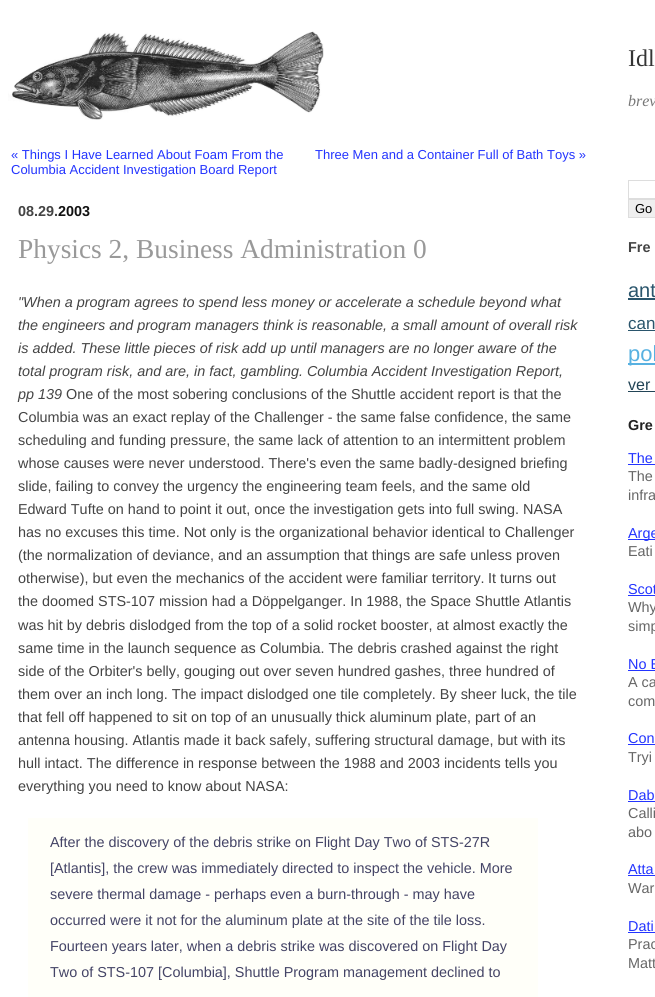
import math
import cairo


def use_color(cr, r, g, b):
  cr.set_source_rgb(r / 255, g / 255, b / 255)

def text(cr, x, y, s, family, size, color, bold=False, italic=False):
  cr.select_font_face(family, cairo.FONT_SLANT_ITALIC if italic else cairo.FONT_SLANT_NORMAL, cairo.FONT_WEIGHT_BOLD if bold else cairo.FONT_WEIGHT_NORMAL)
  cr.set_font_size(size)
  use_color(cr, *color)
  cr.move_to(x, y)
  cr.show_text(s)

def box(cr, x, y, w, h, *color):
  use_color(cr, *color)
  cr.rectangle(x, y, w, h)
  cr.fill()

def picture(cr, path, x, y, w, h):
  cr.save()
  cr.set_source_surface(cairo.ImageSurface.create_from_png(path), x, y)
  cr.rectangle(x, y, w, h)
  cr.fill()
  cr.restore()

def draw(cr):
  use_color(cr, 255, 255, 255)
  cr.paint()
  picture(cr, "img_01.png", 8, 31, 316, 89)
  box(cr, 28, 818, 510, 179, 255, 255, 249)
  cr.rectangle(628.5, 180.5, 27, 18)
  use_color(cr, 221, 221, 221)
  cr.set_line_width(1)
  cr.stroke()
  use_color(cr, 239, 239, 239)
  cr.rectangle(628.5, 199.5, 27, 18)
  cr.fill_preserve()
  use_color(cr, 221, 221, 221)
  cr.stroke()
  box(cr, 628, 298, 27, 2, 42, 85, 108)
  box(cr, 628, 330, 27, 1, 42, 85, 108)
  box(cr, 628, 363, 27, 2, 88, 177, 225)
  box(cr, 628, 391, 27, 1, 34, 68, 86)
  box(cr, 628, 464, 27, 1, 35, 52, 255)
  box(cr, 628, 539, 27, 1, 35, 52, 255)
  box(cr, 628, 595, 27, 1, 35, 52, 255)
  box(cr, 628, 670, 27, 1, 35, 52, 255)
  box(cr, 628, 744, 27, 1, 35, 52, 255)
  box(cr, 628, 801, 27, 1, 35, 52, 255)
  box(cr, 628, 875, 27, 1, 35, 52, 255)
  box(cr, 628, 932, 27, 1, 35, 52, 255)
  text(cr, 11, 159, "« Things I Have Learned About Foam From the", "Liberation Sans", 13, (35, 52, 255))
  text(cr, 11, 174, "Columbia Accident Investigation Board Report", "Liberation Sans", 13, (35, 52, 255))
  text(cr, 315, 159, "Three Men and a Container Full of Bath Toys »", "Liberation Sans", 13, (35, 52, 255))
  text(cr, 18, 216, "08.29.", "Liberation Sans", 14.4, (68, 68, 68), bold=True)
  text(cr, 58, 216, "2003", "Liberation Sans", 14.4, (18, 18, 18), bold=True)
  text(cr, 18, 258, "Physics 2, Business Administration 0", "Liberation Serif", 27.4, (153, 153, 153))
  text(cr, 18, 307, "\"When a program agrees to spend less money or accelerate a schedule beyond what", "Liberation Sans", 14.4, (68, 68, 68), italic=True)
  text(cr, 18, 330, "the engineers and program managers think is reasonable, a small amount of overall risk", "Liberation Sans", 14.4, (68, 68, 68), italic=True)
  text(cr, 18, 353, "is added. These little pieces of risk add up until managers are no longer aware of the", "Liberation Sans", 14.4, (68, 68, 68), italic=True)
  text(cr, 18, 376, "total program risk, and are, in fact, gambling. Columbia Accident Investigation Report,", "Liberation Sans", 14.4, (68, 68, 68), italic=True)
  text(cr, 18, 399, "pp 139", "Liberation Sans", 14.4, (68, 68, 68), italic=True)
  text(cr, 66, 399, "One of the most sobering conclusions of the Shuttle accident report is that the", "Liberation Sans", 14.4, (68, 68, 68))
  text(cr, 18, 422, "Columbia was an exact replay of the Challenger - the same false confidence, the same", "Liberation Sans", 14.4, (68, 68, 68))
  text(cr, 18, 445, "scheduling and funding pressure, the same lack of attention to an intermittent problem", "Liberation Sans", 14.4, (68, 68, 68))
  text(cr, 18, 468, "whose causes were never understood. There's even the same badly-designed briefing", "Liberation Sans", 14.4, (68, 68, 68))
  text(cr, 18, 491, "slide, failing to convey the urgency the engineering team feels, and the same old", "Liberation Sans", 14.4, (68, 68, 68))
  text(cr, 18, 514, "Edward Tufte on hand to point it out, once the investigation gets into full swing. NASA", "Liberation Sans", 14.4, (68, 68, 68))
  text(cr, 18, 537, "has no excuses this time. Not only is the organizational behavior identical to Challenger", "Liberation Sans", 14.4, (68, 68, 68))
  text(cr, 18, 560, "(the normalization of deviance, and an assumption that things are safe unless proven", "Liberation Sans", 14.4, (68, 68, 68))
  text(cr, 18, 583, "otherwise), but even the mechanics of the accident were familiar territory.", "Liberation Sans", 14.4, (68, 68, 68))
  text(cr, 488, 583, "It turns out", "Liberation Sans", 14.4, (68, 68, 68))
  text(cr, 18, 606, "the doomed STS-107 mission had a Döppelganger. In 1988, the Space Shuttle Atlantis", "Liberation Sans", 14.4, (68, 68, 68))
  text(cr, 18, 630, "was hit by debris dislodged from the top of a solid rocket booster, at almost exactly the", "Liberation Sans", 14.4, (68, 68, 68))
  text(cr, 18, 653, "same time in the launch sequence as Columbia. The debris crashed against the right", "Liberation Sans", 14.4, (68, 68, 68))
  text(cr, 18, 676, "side of the Orbiter's belly, gouging out over seven hundred gashes, three hundred of", "Liberation Sans", 14.4, (68, 68, 68))
  text(cr, 18, 699, "them over an inch long. The impact dislodged one tile completely. By sheer luck, the tile", "Liberation Sans", 14.4, (68, 68, 68))
  text(cr, 18, 722, "that fell off happened to sit on top of an unusually thick aluminum plate, part of an", "Liberation Sans", 14.4, (68, 68, 68))
  text(cr, 18, 745, "antenna housing. Atlantis made it back safely, suffering structural damage, but with its", "Liberation Sans", 14.4, (68, 68, 68))
  text(cr, 18, 768, "hull intact. The difference in response between the 1988 and 2003 incidents tells you", "Liberation Sans", 14.4, (68, 68, 68))
  text(cr, 18, 791, "everything you need to know about NASA:", "Liberation Sans", 14.4, (68, 68, 68))
  text(cr, 50, 847, "After the discovery of the debris strike on Flight Day Two of STS-27R", "Liberation Sans", 14.4, (68, 68, 102))
  text(cr, 50, 873, "[Atlantis], the crew was immediately directed to inspect the vehicle. More", "Liberation Sans", 14.4, (68, 68, 102))
  text(cr, 50, 899, "severe thermal damage - perhaps even a burn-through - may have", "Liberation Sans", 14.4, (68, 68, 102))
  text(cr, 50, 925, "occurred were it not for the aluminum plate at the site of the tile loss.", "Liberation Sans", 14.4, (68, 68, 102))
  text(cr, 50, 951, "Fourteen years later, when a debris strike was discovered on Flight Day", "Liberation Sans", 14.4, (68, 68, 102))
  text(cr, 50, 977, "Two of STS-107 [Columbia], Shuttle Program management declined to", "Liberation Sans", 14.4, (68, 68, 102))
  text(cr, 628, 66, "Idl", "Liberation Serif", 24, (52, 52, 52))
  text(cr, 628, 106, "brev", "Liberation Serif", 16, (119, 119, 119), italic=True)
  text(cr, 635, 213, "Go", "Liberation Sans", 13, (0, 0, 0))
  text(cr, 628, 252, "Fre", "Liberation Sans", 14.4, (68, 68, 68), bold=True)
  text(cr, 628, 297, "ant", "Liberation Sans", 20, (42, 85, 108))
  text(cr, 628, 329, "can", "Liberation Sans", 17, (42, 85, 108))
  text(cr, 628, 361, "pol", "Liberation Sans", 22, (88, 177, 225))
  text(cr, 628, 390, "ver", "Liberation Sans", 16, (34, 68, 86))
  text(cr, 628, 430, "Gre", "Liberation Sans", 14.4, (34, 34, 34), bold=True)
  text(cr, 628, 463, "The", "Liberation Sans", 14.4, (35, 52, 255))
  text(cr, 628, 481, "The", "Liberation Sans", 14.4, (102, 102, 102))
  text(cr, 628, 500, "infra", "Liberation Sans", 14.4, (102, 102, 102))
  text(cr, 628, 538, "Arge", "Liberation Sans", 14.4, (35, 52, 255))
  text(cr, 628, 556, "Eati", "Liberation Sans", 14.4, (102, 102, 102))
  text(cr, 628, 594, "Scot", "Liberation Sans", 14.4, (35, 52, 255))
  text(cr, 628, 612, "Why", "Liberation Sans", 14.4, (102, 102, 102))
  text(cr, 628, 631, "simp", "Liberation Sans", 14.4, (102, 102, 102))
  text(cr, 628, 669, "No E", "Liberation Sans", 14.4, (35, 52, 255))
  text(cr, 628, 687, "A ca", "Liberation Sans", 14.4, (102, 102, 102))
  text(cr, 628, 706, "com", "Liberation Sans", 14.4, (102, 102, 102))
  text(cr, 628, 743, "Con", "Liberation Sans", 14.4, (35, 52, 255))
  text(cr, 628, 762, "Tryi", "Liberation Sans", 14.4, (102, 102, 102))
  text(cr, 628, 800, "Dab", "Liberation Sans", 14.4, (35, 52, 255))
  text(cr, 628, 818, "Calli", "Liberation Sans", 14.4, (102, 102, 102))
  text(cr, 628, 837, "abo", "Liberation Sans", 14.4, (102, 102, 102))
  text(cr, 628, 874, "Atta", "Liberation Sans", 14.4, (35, 52, 255))
  text(cr, 628, 893, "War", "Liberation Sans", 14.4, (102, 102, 102))
  text(cr, 628, 931, "Dati", "Liberation Sans", 14.4, (35, 52, 255))
  text(cr, 628, 949, "Prac", "Liberation Sans", 14.4, (102, 102, 102))
  text(cr, 628, 968, "Matt", "Liberation Sans", 14.4, (102, 102, 102))


surface = cairo.ImageSurface(cairo.FORMAT_RGB24, 655, 997)
cr = cairo.Context(surface)
options = cairo.FontOptions()
options.set_hint_metrics(cairo.HINT_METRICS_OFF)
options.set_hint_style(cairo.HINT_STYLE_NONE)
cr.set_font_options(options)
cr.set_miter_limit(4)
draw(cr)
surface.write_to_png("out.png")
